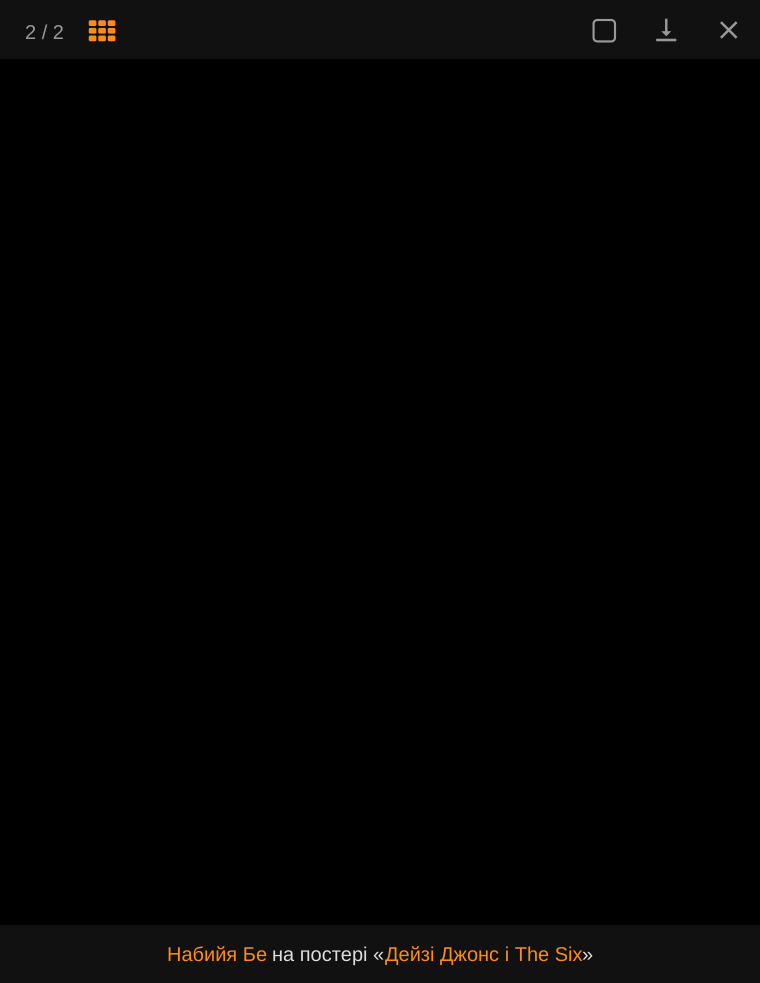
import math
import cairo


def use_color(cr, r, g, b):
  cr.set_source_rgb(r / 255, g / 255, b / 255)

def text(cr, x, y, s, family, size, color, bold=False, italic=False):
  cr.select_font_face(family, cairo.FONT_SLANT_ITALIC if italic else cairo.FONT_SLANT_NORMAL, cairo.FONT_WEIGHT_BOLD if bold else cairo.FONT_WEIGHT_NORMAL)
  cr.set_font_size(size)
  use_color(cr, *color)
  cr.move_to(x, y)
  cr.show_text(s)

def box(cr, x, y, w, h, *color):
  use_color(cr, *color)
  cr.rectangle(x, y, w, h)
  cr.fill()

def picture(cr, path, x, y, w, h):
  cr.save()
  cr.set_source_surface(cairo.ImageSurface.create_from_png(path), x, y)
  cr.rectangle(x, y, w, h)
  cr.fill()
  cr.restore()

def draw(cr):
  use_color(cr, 0, 0, 0)
  cr.paint()
  box(cr, 0, 0, 760, 59, 17, 17, 17)
  picture(cr, "img_01.png", 88, 20, 28, 22)
  picture(cr, "img_02.png", 592, 18, 25, 25)
  picture(cr, "img_03.png", 656, 18, 21, 24)
  picture(cr, "img_04.png", 720, 21, 18, 18)
  box(cr, 0, 925, 760, 58, 17, 17, 17)
  text(cr, 25, 39, "2 / 2", "Liberation Sans", 20, (153, 153, 153))
  text(cr, 167, 961, "Набийя Бе", "Liberation Sans", 20, (250, 140, 25))
  text(cr, 272, 961, "на постері «", "Liberation Sans", 20, (221, 221, 221))
  text(cr, 385, 961, "Дейзі Джонс і The Six", "Liberation Sans", 20, (250, 140, 25))
  text(cr, 582, 961, "»", "Liberation Sans", 20, (221, 221, 221))


surface = cairo.ImageSurface(cairo.FORMAT_RGB24, 760, 983)
cr = cairo.Context(surface)
options = cairo.FontOptions()
options.set_hint_metrics(cairo.HINT_METRICS_OFF)
options.set_hint_style(cairo.HINT_STYLE_NONE)
cr.set_font_options(options)
cr.set_miter_limit(4)
draw(cr)
surface.write_to_png("out.png")
